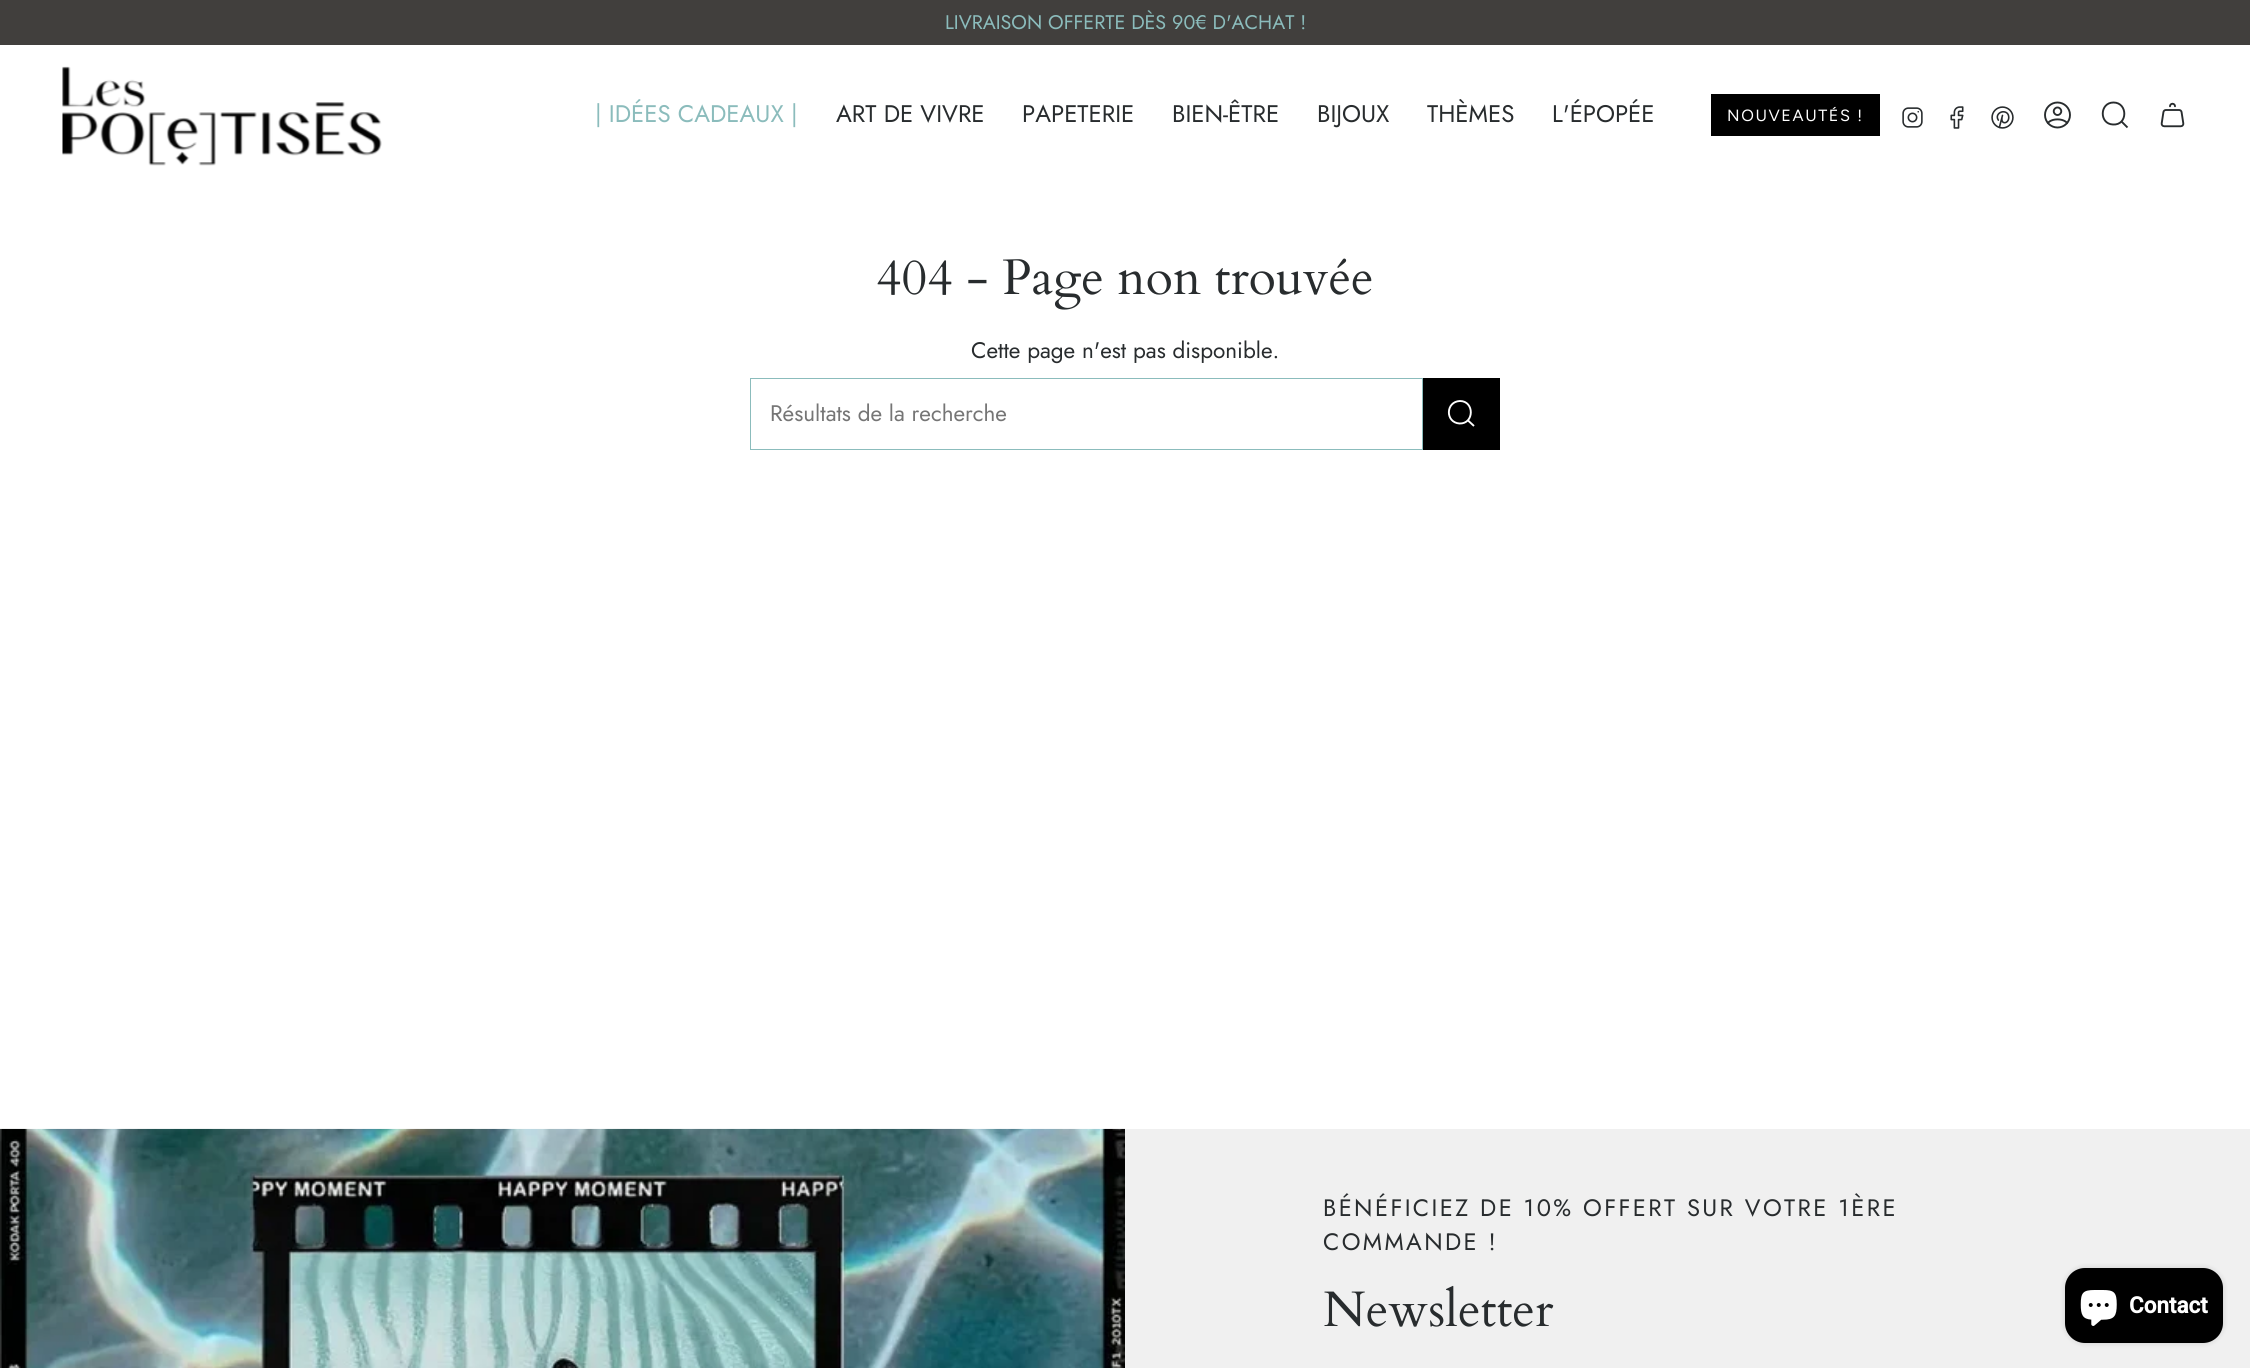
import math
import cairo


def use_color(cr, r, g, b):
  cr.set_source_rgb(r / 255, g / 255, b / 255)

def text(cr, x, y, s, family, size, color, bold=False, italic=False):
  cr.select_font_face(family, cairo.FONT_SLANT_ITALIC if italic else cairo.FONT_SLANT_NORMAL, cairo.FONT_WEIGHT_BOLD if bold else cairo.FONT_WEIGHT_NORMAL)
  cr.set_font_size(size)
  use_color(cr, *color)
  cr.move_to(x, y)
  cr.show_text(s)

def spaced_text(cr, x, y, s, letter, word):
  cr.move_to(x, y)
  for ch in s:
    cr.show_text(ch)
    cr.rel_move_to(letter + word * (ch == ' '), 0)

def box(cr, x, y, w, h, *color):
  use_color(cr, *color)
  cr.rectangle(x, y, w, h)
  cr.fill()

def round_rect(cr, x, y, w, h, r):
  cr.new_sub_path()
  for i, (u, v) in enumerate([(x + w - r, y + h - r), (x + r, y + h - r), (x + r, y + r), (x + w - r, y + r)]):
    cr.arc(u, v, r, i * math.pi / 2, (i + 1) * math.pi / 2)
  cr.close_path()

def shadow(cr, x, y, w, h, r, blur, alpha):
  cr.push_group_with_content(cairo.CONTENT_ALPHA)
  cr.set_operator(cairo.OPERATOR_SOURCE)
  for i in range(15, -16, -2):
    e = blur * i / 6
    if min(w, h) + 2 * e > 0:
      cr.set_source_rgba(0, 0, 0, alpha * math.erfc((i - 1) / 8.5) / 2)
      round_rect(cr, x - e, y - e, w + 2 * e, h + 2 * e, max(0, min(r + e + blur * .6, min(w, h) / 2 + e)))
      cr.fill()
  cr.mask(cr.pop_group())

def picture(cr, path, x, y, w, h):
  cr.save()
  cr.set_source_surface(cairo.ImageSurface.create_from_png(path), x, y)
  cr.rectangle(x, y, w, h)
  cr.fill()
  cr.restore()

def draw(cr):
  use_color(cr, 255, 255, 255)
  cr.paint()
  box(cr, 0, 0, 2250, 45, 65, 63, 61)
  picture(cr, "img_01.png", 62, 66, 320, 100)
  box(cr, 1711, 94, 169, 42, 0, 0, 0)
  picture(cr, "img_02.png", 1902, 107, 21, 21)
  picture(cr, "img_03.png", 1950, 106, 14, 23)
  picture(cr, "img_04.png", 1991, 106, 23, 23)
  picture(cr, "img_05.png", 2044, 101, 27, 28)
  cr.new_path()
  cr.move_to(2113.5, 102.5)
  cr.curve_to(2128, 102.5, 2128, 125.5, 2113, 124.5)
  cr.curve_to(2099, 124, 2099.5, 102.5, 2113.5, 102.5)
  cr.close_path()
  cr.move_to(2121.5, 121.5)
  cr.line_to(2127.5, 127.5)
  use_color(cr, 40, 44, 46)
  cr.set_line_width(1.9)
  cr.stroke()
  picture(cr, "img_06.png", 2160, 102, 25, 26)
  cr.rectangle(750.5, 378.5, 672, 71)
  use_color(cr, 139, 188, 188)
  cr.set_line_width(1)
  cr.stroke()
  box(cr, 1423, 378, 77, 72, 0, 0, 0)
  cr.new_path()
  cr.move_to(1460, 401)
  cr.curve_to(1474.5, 401, 1474.5, 424, 1459.5, 423.5)
  cr.curve_to(1445, 422.5, 1445.5, 401.5, 1460, 401)
  cr.close_path()
  cr.move_to(1467.5, 420)
  cr.line_to(1474, 426)
  use_color(cr, 255, 255, 255)
  cr.set_line_width(1.9)
  cr.stroke()
  picture(cr, "img_07.png", 0, 1128, 1125, 240)
  box(cr, 1125, 1129, 1125, 239, 240, 240, 240)
  use_color(cr, 0, 0, 0)
  shadow(cr, 2065, 1268, 158, 75, 20, 3, 0.15)
  use_color(cr, 0, 0, 0)
  round_rect(cr, 2065, 1268, 158, 75, 20)
  cr.fill()
  picture(cr, "img_08.png", 2080, 1290, 37, 36)
  text(cr, 945, 29, "LIVRAISON OFFERTE DÈS 90€ D'ACHAT !", "Jost", 19.7, (139, 188, 188))
  text(cr, 595, 122, "| IDÉES CADEAUX |", "Jost", 24, (139, 188, 188))
  text(cr, 836, 122, "ART DE VIVRE", "Jost", 24, (40, 44, 46))
  text(cr, 1022, 122, "PAPETERIE", "Jost", 24, (40, 44, 46))
  text(cr, 1172, 122, "BIEN-ÊTRE", "Jost", 24, (40, 44, 46))
  text(cr, 1317, 122, "BIJOUX", "Jost", 24, (40, 44, 46))
  text(cr, 1427, 122, "THÈMES", "Jost", 24, (40, 44, 46))
  text(cr, 1552, 122, "L'ÉPOPÉE", "Jost", 24, (40, 44, 46))
  cr.select_font_face("Figtree")
  cr.set_font_size(16.25)
  use_color(cr, 255, 255, 255)
  spaced_text(cr, 1727, 121, "NOUVEAUTÉS !", 1.6, 0)
  text(cr, 876, 294, "404 - Page non trouvée", "Cardo", 50, (40, 44, 46))
  text(cr, 971, 358, "Cette page n'est pas disponible.", "Jost", 22.5, (40, 44, 46))
  text(cr, 770, 421, "Résultats de la recherche", "Jost", 22.5, (117, 117, 117))
  cr.set_font_size(23.75)
  use_color(cr, 40, 44, 46)
  spaced_text(cr, 1323, 1216, "BÉNÉFICIEZ DE 10% OFFERT SUR VOTRE 1ÈRE", 2.4, 0)
  spaced_text(cr, 1323, 1250, "COMMANDE !", 2.4, 0)
  text(cr, 1323, 1326, "Newsletter", "Cardo", 50, (40, 44, 46))
  text(cr, 2129, 1313, "Contact", "Roboto", 22.5, (255, 255, 255), bold=True)


surface = cairo.ImageSurface(cairo.FORMAT_RGB24, 2250, 1368)
cr = cairo.Context(surface)
options = cairo.FontOptions()
options.set_hint_metrics(cairo.HINT_METRICS_OFF)
options.set_hint_style(cairo.HINT_STYLE_NONE)
cr.set_font_options(options)
cr.set_miter_limit(4)
draw(cr)
surface.write_to_png("out.png")
